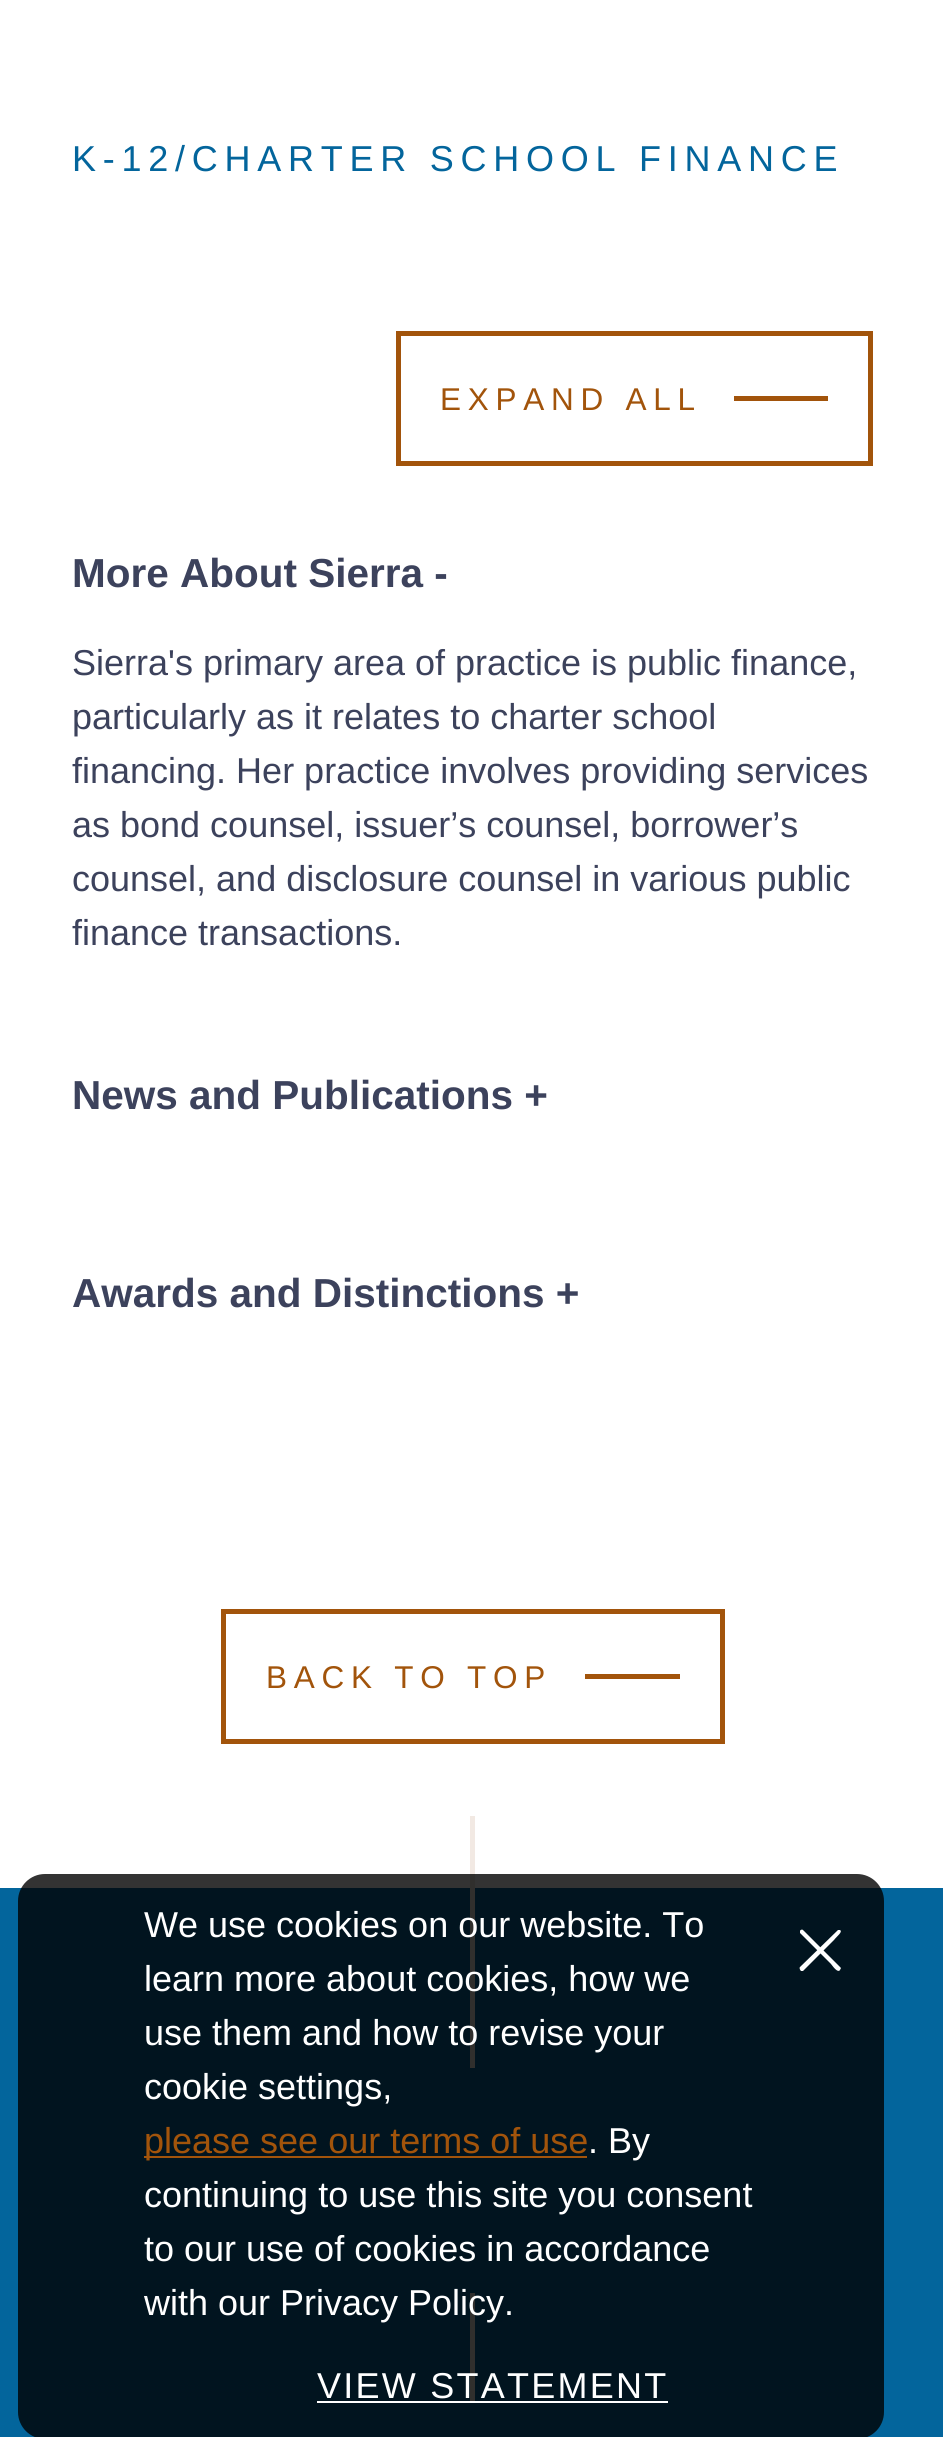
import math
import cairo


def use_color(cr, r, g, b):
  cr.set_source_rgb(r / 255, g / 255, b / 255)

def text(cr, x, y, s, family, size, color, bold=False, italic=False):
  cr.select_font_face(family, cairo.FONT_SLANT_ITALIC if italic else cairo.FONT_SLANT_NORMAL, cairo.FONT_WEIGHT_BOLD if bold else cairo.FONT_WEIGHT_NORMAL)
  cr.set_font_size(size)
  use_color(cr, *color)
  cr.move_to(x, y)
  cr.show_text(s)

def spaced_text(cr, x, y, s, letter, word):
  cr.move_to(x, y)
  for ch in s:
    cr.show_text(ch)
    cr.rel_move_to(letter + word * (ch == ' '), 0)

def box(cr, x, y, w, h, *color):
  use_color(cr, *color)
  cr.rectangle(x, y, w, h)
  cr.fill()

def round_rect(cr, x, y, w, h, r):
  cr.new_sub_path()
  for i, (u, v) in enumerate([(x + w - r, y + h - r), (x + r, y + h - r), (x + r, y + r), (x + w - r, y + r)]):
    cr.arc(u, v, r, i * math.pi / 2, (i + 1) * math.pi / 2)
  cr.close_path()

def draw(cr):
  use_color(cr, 255, 255, 255)
  cr.paint()
  cr.rectangle(398.5, 333.5, 472, 130)
  use_color(cr, 162, 84, 11)
  cr.set_line_width(5)
  cr.stroke()
  box(cr, 734, 396, 94, 5, 162, 84, 11)
  cr.rectangle(223.5, 1611.5, 499, 130)
  cr.stroke()
  box(cr, 585, 1674, 95, 5, 162, 84, 11)
  box(cr, 0, 1888, 943, 549, 3, 101, 156)
  box(cr, 470, 1816, 5, 585, 242, 233, 227)
  box(cr, 470, 2068, 5, 225, 3, 101, 156)
  cr.set_source_rgba(0, 0, 0, 0.8)
  round_rect(cr, 18, 1874, 866, 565, 27)
  cr.fill()
  box(cr, 144, 2156, 443, 2, 162, 84, 11)
  box(cr, 317, 2401, 351, 2, 255, 255, 255)
  cr.new_path()
  cr.move_to(803, 1930)
  cr.line_to(841, 1968)
  cr.line_to(840, 1970)
  cr.curve_to(838, 1973, 834, 1968, 831, 1964)
  cr.line_to(800, 1933)
  cr.line_to(800, 1931)
  cr.curve_to(800, 1930, 802, 1929, 803, 1930)
  cr.close_path()
  cr.fill()
  cr.new_path()
  cr.move_to(800, 1967)
  cr.line_to(838, 1930)
  cr.line_to(840, 1930)
  cr.curve_to(843, 1932, 837, 1936, 834, 1940)
  cr.line_to(803, 1971)
  cr.line_to(801, 1971)
  cr.curve_to(800, 1970, 799, 1968, 800, 1967)
  cr.close_path()
  cr.fill()
  cr.select_font_face("Liberation Sans")
  cr.set_font_size(36)
  use_color(cr, 3, 101, 156)
  spaced_text(cr, 72, 171, "K-12/CHARTER SCHOOL FINANCE", 6.75, 0)
  cr.set_font_size(31.5)
  use_color(cr, 162, 84, 11)
  spaced_text(cr, 440, 410, "EXPAND ALL", 6.75, 0)
  text(cr, 72, 587, "More About Sierra -", "Liberation Sans", 40.5, (60, 66, 92), bold=True)
  text(cr, 72, 675, "Sierra's primary area of practice is public finance,", "Liberation Sans", 36, (60, 66, 92))
  text(cr, 72, 729, "particularly as it relates to charter school", "Liberation Sans", 36, (60, 66, 92))
  text(cr, 72, 783, "financing. Her practice involves providing services", "Liberation Sans", 36, (60, 66, 92))
  text(cr, 72, 837, "as bond counsel, issuer’s counsel, borrower’s", "Liberation Sans", 36, (60, 66, 92))
  text(cr, 72, 891, "counsel, and disclosure counsel in various public", "Liberation Sans", 36, (60, 66, 92))
  text(cr, 72, 945, "finance transactions.", "Liberation Sans", 36, (60, 66, 92))
  text(cr, 72, 1109, "News and Publications +", "Liberation Sans", 40.5, (60, 66, 92), bold=True)
  text(cr, 72, 1307, "Awards and Distinctions +", "Liberation Sans", 40.5, (60, 66, 92), bold=True)
  cr.select_font_face("Liberation Sans")
  cr.set_font_size(31.5)
  use_color(cr, 162, 84, 11)
  spaced_text(cr, 266, 1688, "BACK TO TOP", 6.75, 0)
  text(cr, 144, 1937, "We use cookies on our website. To", "Liberation Sans", 36, (255, 255, 255))
  text(cr, 144, 1991, "learn more about cookies, how we", "Liberation Sans", 36, (255, 255, 255))
  text(cr, 144, 2045, "use them and how to revise your", "Liberation Sans", 36, (255, 255, 255))
  text(cr, 144, 2099, "cookie settings,", "Liberation Sans", 36, (255, 255, 255))
  text(cr, 144, 2153, "please see our terms of use", "Liberation Sans", 36, (162, 84, 11))
  text(cr, 588, 2153, ". By", "Liberation Sans", 36, (255, 255, 255))
  text(cr, 144, 2207, "continuing to use this site you consent", "Liberation Sans", 36, (255, 255, 255))
  text(cr, 144, 2261, "to our use of cookies in accordance", "Liberation Sans", 36, (255, 255, 255))
  text(cr, 144, 2315, "with our Privacy Policy.", "Liberation Sans", 36, (255, 255, 255))
  spaced_text(cr, 317, 2398, "VIEW STATEMENT", 2.25, 0)


surface = cairo.ImageSurface(cairo.FORMAT_RGB24, 943, 2437)
cr = cairo.Context(surface)
options = cairo.FontOptions()
options.set_hint_metrics(cairo.HINT_METRICS_OFF)
options.set_hint_style(cairo.HINT_STYLE_NONE)
cr.set_font_options(options)
cr.set_miter_limit(4)
draw(cr)
surface.write_to_png("out.png")
